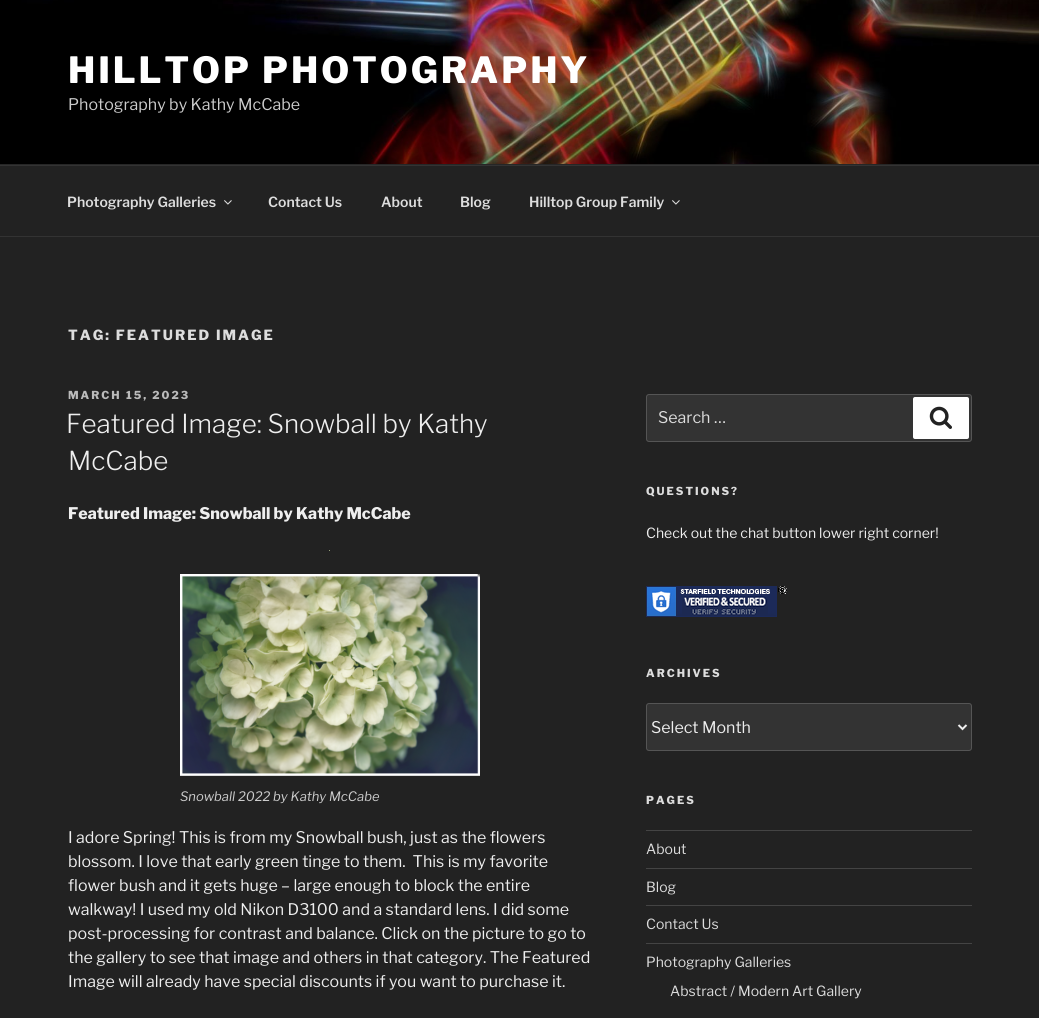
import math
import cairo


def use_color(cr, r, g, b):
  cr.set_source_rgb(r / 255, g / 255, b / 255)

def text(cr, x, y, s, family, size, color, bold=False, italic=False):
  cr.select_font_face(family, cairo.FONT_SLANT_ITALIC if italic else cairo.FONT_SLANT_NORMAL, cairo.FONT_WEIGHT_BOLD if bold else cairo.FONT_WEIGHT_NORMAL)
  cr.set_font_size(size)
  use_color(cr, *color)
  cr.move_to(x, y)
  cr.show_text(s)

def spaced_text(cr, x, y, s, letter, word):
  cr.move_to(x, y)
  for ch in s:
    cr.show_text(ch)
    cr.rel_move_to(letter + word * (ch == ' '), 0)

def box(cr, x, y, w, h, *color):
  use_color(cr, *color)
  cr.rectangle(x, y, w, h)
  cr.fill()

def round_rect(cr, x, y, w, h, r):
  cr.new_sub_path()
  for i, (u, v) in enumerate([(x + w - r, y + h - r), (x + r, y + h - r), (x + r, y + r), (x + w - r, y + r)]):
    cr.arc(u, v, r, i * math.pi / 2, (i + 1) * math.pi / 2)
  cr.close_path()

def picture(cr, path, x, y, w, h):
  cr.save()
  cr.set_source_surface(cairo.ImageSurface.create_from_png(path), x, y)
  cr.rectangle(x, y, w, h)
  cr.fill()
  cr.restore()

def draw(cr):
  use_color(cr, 34, 34, 34)
  cr.paint()
  box(cr, 0, 164, 1039, 1, 38, 38, 38)
  picture(cr, "img_01.png", 0, 0, 1039, 164)
  box(cr, 0, 165, 1039, 1, 51, 51, 51)
  box(cr, 0, 236, 1039, 1, 51, 51, 51)
  picture(cr, "img_02.png", 224, 200, 8, 5)
  picture(cr, "img_02.png", 672, 200, 8, 5)
  box(cr, 329, 550, 1, 1, 151, 160, 122)
  picture(cr, "img_03.png", 180, 574, 300, 202)
  use_color(cr, 51, 51, 51)
  round_rect(cr, 646.5, 394.5, 325, 47, 2.5)
  cr.fill_preserve()
  use_color(cr, 85, 85, 85)
  cr.set_line_width(1)
  cr.stroke()
  use_color(cr, 255, 255, 255)
  round_rect(cr, 913, 397, 56, 42, 2)
  cr.fill()
  picture(cr, "img_04.png", 929, 406, 23, 23)
  picture(cr, "img_05.png", 646, 586, 141, 31)
  use_color(cr, 51, 51, 51)
  round_rect(cr, 646.5, 703.5, 325, 47, 2.5)
  cr.fill_preserve()
  use_color(cr, 85, 85, 85)
  cr.stroke()
  cr.new_path()
  cr.move_to(958.5, 725)
  cr.line_to(962.5, 729)
  cr.line_to(966.5, 725)
  use_color(cr, 238, 238, 238)
  cr.set_line_width(2)
  cr.stroke()
  box(cr, 646, 830, 326, 1, 68, 68, 68)
  box(cr, 646, 868, 326, 1, 68, 68, 68)
  box(cr, 646, 905, 326, 1, 68, 68, 68)
  box(cr, 646, 943, 326, 1, 68, 68, 68)
  cr.select_font_face("Libre Franklin Thin")
  cr.set_font_size(36)
  use_color(cr, 255, 255, 255)
  spaced_text(cr, 68, 83, "HILLTOP PHOTOGRAPHY", 2.9, 0)
  text(cr, 68, 110, "Photography by Kathy McCabe", "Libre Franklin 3 Thin", 16, (204, 204, 204))
  text(cr, 67, 207, "Photography Galleries", "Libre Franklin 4 Thin", 14, (221, 221, 221))
  text(cr, 268, 207, "Contact Us", "Libre Franklin 4 Thin", 14, (221, 221, 221))
  text(cr, 381, 207, "About", "Libre Franklin 4 Thin", 14, (221, 221, 221))
  text(cr, 460, 207, "Blog", "Libre Franklin 4 Thin", 14, (221, 221, 221))
  text(cr, 529, 207, "Hilltop Group Family", "Libre Franklin 4 Thin", 14, (221, 221, 221))
  cr.select_font_face("Libre Franklin Thin")
  spaced_text(cr, 68, 340, "TAG: FEATURED IMAGE", 2, 0)
  cr.set_font_size(11)
  use_color(cr, 187, 187, 187)
  spaced_text(cr, 68, 399, "MARCH 15, 2023", 2, 0)
  text(cr, 66, 433, "Featured Image: Snowball by Kathy", "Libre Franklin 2 Thin", 26, (238, 238, 238))
  text(cr, 68, 470, "McCabe", "Libre Franklin 2 Thin", 26, (238, 238, 238))
  text(cr, 68, 519, "Featured Image: Snowball by Kathy McCabe", "Libre Franklin Thin", 16, (238, 238, 238))
  text(cr, 180, 801, "Snowball 2022 by Kathy McCabe", "Libre Franklin Thin", 13, (204, 204, 204), italic=True)
  text(cr, 68, 843, "I adore Spring! This is from my Snowball bush, just as the flowers", "Libre Franklin 3 Thin", 16, (238, 238, 238))
  text(cr, 68, 867, "blossom. I love that early green tinge to them.  This is my favorite", "Libre Franklin 3 Thin", 16, (238, 238, 238))
  text(cr, 68, 891, "flower bush and it gets huge – large enough to block the entire", "Libre Franklin 3 Thin", 16, (238, 238, 238))
  text(cr, 68, 915, "walkway! I used my old Nikon D3100 and a standard lens. I did some", "Libre Franklin 3 Thin", 16, (238, 238, 238))
  text(cr, 68, 939, "post-processing for contrast and balance. Click on the picture to go to", "Libre Franklin 3 Thin", 16, (238, 238, 238))
  text(cr, 68, 963, "the gallery to see that image and others in that category. The Featured", "Libre Franklin 3 Thin", 16, (238, 238, 238))
  text(cr, 68, 987, "Image will already have special discounts if you want to purchase it.", "Libre Franklin 3 Thin", 16, (238, 238, 238))
  text(cr, 658, 423, "Search …", "Libre Franklin 3 Thin", 16, (221, 221, 221))
  cr.select_font_face("Libre Franklin Thin")
  cr.set_font_size(11)
  spaced_text(cr, 646, 495, "QUESTIONS?", 2, 0)
  text(cr, 646, 538, "Check out the chat button lower right corner!", "Libre Franklin 3 Thin", 14, (238, 238, 238))
  cr.select_font_face("Libre Franklin Thin")
  cr.set_font_size(11)
  use_color(cr, 221, 221, 221)
  spaced_text(cr, 646, 677, "ARCHIVES", 2, 0)
  text(cr, 651, 733, "Select Month", "Libre Franklin 3 Thin", 16, (238, 238, 238))
  cr.select_font_face("Libre Franklin Thin")
  cr.set_font_size(11)
  use_color(cr, 221, 221, 221)
  spaced_text(cr, 646, 804, "PAGES", 2, 0)
  text(cr, 646, 854, "About", "Libre Franklin 3 Thin", 14, (221, 221, 221))
  text(cr, 646, 892, "Blog", "Libre Franklin 3 Thin", 14, (221, 221, 221))
  text(cr, 646, 929, "Contact Us", "Libre Franklin 3 Thin", 14, (221, 221, 221))
  text(cr, 646, 967, "Photography Galleries", "Libre Franklin 3 Thin", 14, (221, 221, 221))
  text(cr, 670, 996, "Abstract / Modern Art Gallery", "Libre Franklin 3 Thin", 14, (221, 221, 221))


surface = cairo.ImageSurface(cairo.FORMAT_RGB24, 1039, 1018)
cr = cairo.Context(surface)
options = cairo.FontOptions()
options.set_hint_metrics(cairo.HINT_METRICS_OFF)
options.set_hint_style(cairo.HINT_STYLE_NONE)
cr.set_font_options(options)
cr.set_miter_limit(4)
draw(cr)
surface.write_to_png("out.png")
